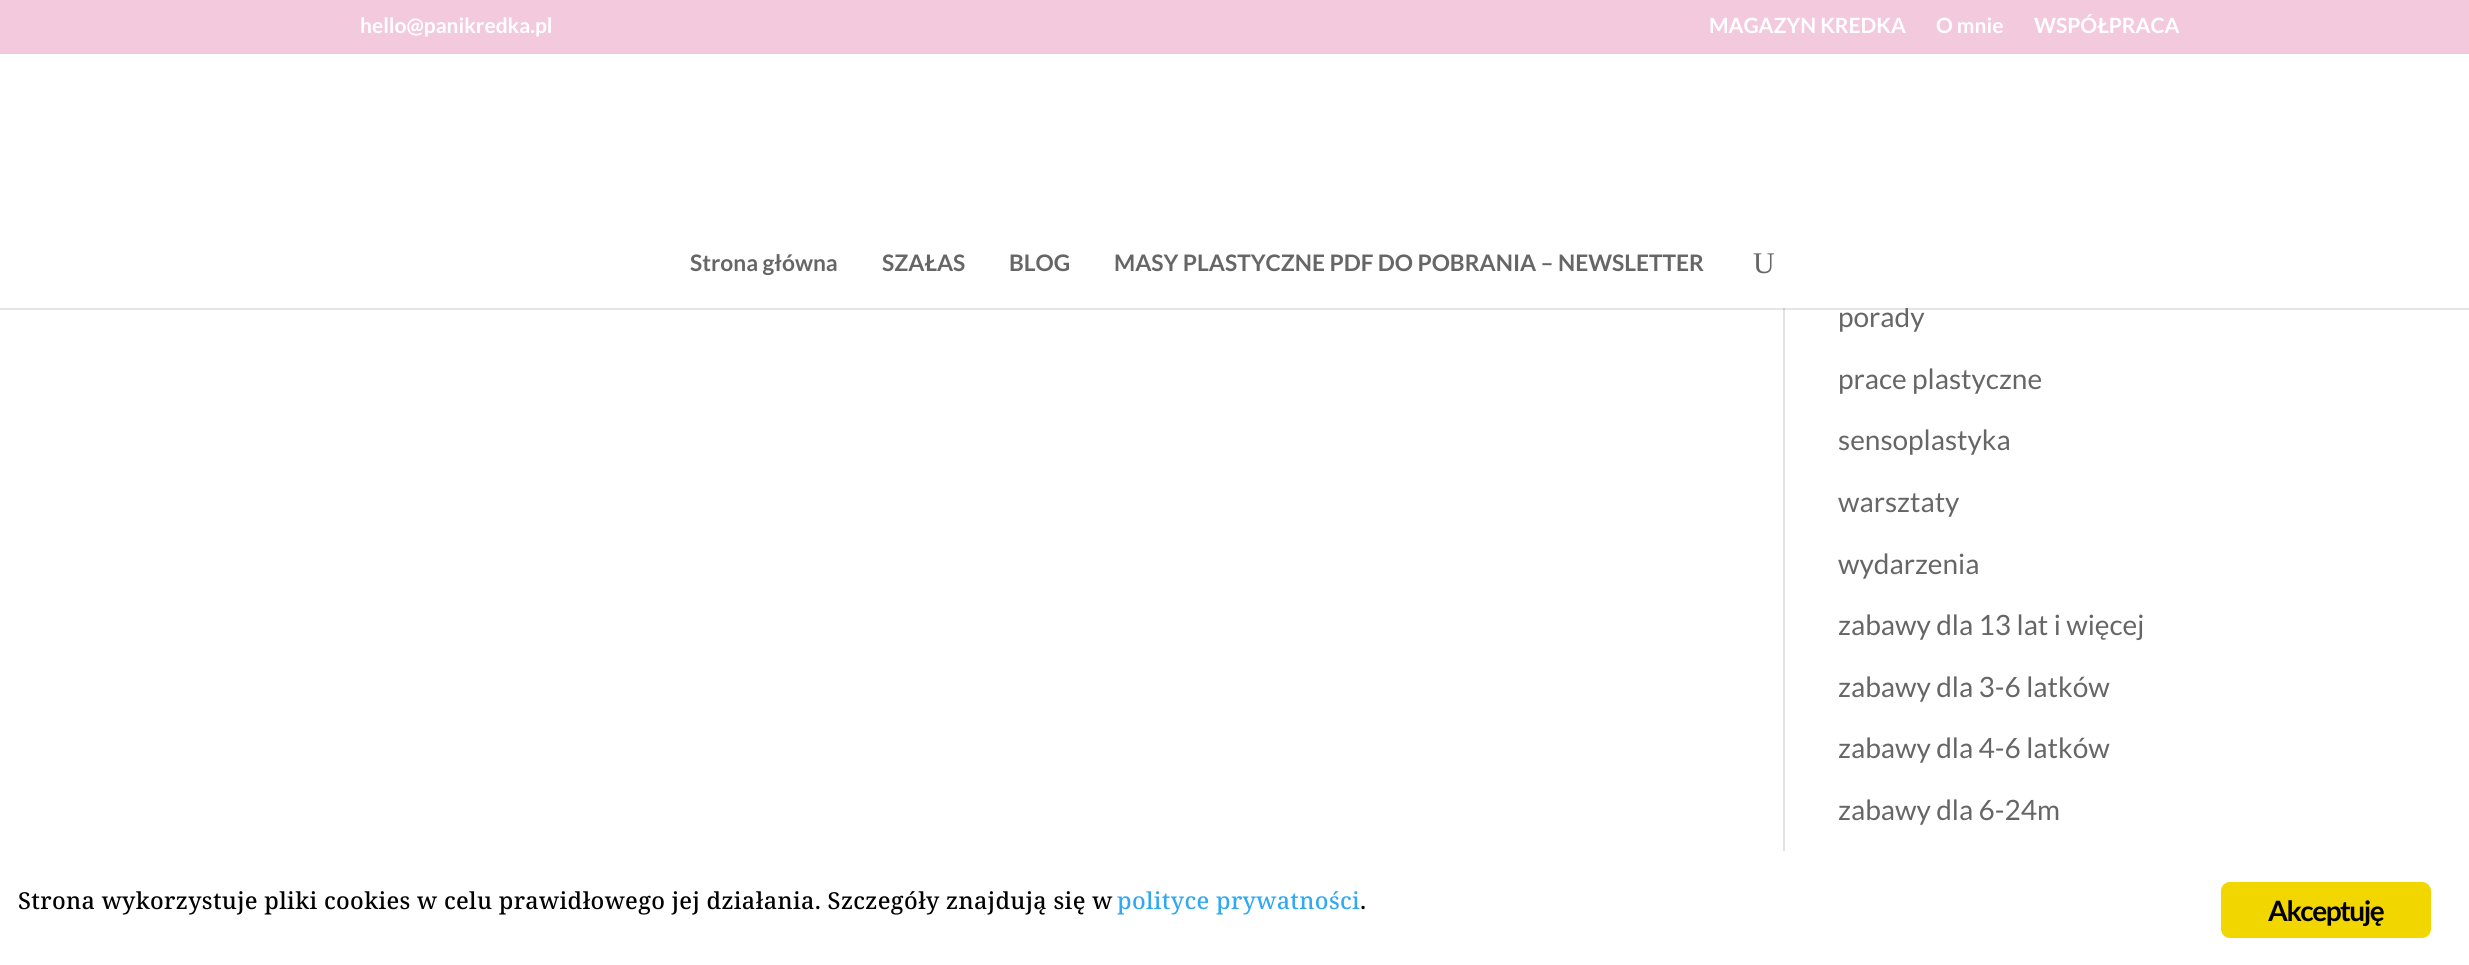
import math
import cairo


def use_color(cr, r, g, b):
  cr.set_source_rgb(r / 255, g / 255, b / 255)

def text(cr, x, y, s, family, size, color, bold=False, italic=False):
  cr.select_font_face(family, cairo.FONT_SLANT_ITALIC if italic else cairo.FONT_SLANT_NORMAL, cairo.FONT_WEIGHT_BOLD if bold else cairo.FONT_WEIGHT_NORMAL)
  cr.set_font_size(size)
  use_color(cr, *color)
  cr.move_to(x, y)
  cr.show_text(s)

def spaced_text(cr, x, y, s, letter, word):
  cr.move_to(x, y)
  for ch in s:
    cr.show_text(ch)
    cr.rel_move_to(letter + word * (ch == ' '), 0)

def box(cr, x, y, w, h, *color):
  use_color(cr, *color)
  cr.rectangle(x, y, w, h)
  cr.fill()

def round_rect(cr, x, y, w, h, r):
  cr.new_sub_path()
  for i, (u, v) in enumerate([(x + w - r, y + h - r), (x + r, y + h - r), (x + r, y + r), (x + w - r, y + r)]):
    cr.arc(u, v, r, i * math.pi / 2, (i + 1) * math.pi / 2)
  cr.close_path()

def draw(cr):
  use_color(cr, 255, 255, 255)
  cr.paint()
  box(cr, 0, 0, 2469, 54, 243, 201, 221)
  box(cr, 1783, 308, 2, 543, 226, 226, 226)
  cr.set_source_rgba(0, 0, 0, 0.1)
  cr.rectangle(0, 308, 2469, 2)
  cr.fill()
  use_color(cr, 241, 214, 0)
  round_rect(cr, 2221, 882, 210, 56, 9)
  cr.fill()
  text(cr, 360, 33, "hello@panikredka.pl", "Lato", 21, (255, 255, 255), bold=True)
  text(cr, 1709, 33, "MAGAZYN KREDKA", "Lato", 21, (255, 255, 255), bold=True)
  text(cr, 1936, 33, "O mnie", "Lato", 21, (255, 255, 255), bold=True)
  text(cr, 2034, 33, "WSPÓŁPRACA", "Lato", 21, (255, 255, 255), bold=True)
  text(cr, 690, 271, "Strona główna", "Lato", 22.75, (102, 102, 102), bold=True)
  text(cr, 882, 271, "SZAŁAS", "Lato", 22.75, (102, 102, 102), bold=True)
  text(cr, 1009, 271, "BLOG", "Lato", 22.75, (102, 102, 102), bold=True)
  text(cr, 1114, 271, "MASY PLASTYCZNE PDF DO POBRANIA – NEWSLETTER", "Lato", 22.75, (102, 102, 102), bold=True)
  text(cr, 1753, 273, "U", "Liberation Serif", 30, (102, 102, 102))
  text(cr, 1838, 327, "porady", "Lato", 28, (102, 102, 102))
  box(cr, 1905, 306, 3, 2, 255, 255, 255)
  text(cr, 1838, 389, "prace plastyczne", "Lato", 28, (102, 102, 102))
  text(cr, 1838, 450, "sensoplastyka", "Lato", 28, (102, 102, 102))
  text(cr, 1838, 512, "warsztaty", "Lato", 28, (102, 102, 102))
  text(cr, 1838, 574, "wydarzenia", "Lato", 28, (102, 102, 102))
  text(cr, 1838, 635, "zabawy dla 13 lat i więcej", "Lato", 28, (102, 102, 102))
  text(cr, 1838, 697, "zabawy dla 3-6 latków", "Lato", 28, (102, 102, 102))
  text(cr, 1838, 758, "zabawy dla 4-6 latków", "Lato", 28, (102, 102, 102))
  text(cr, 1838, 820, "zabawy dla 6-24m", "Lato", 28, (102, 102, 102))
  cr.select_font_face("Noto Serif Medium")
  cr.set_font_size(23.35)
  use_color(cr, 0, 0, 0)
  spaced_text(cr, 18, 909, "Strona wykorzystuje pliki cookies w celu prawidłowego jej działania. Szczegóły znajdują się w", 0.35, 0)
  use_color(cr, 49, 168, 240)
  spaced_text(cr, 1117, 909, "polityce prywatności", 0.35, 0)
  use_color(cr, 0, 0, 0)
  spaced_text(cr, 1360, 909, ".", 0.35, 0)
  cr.select_font_face("Lato", cairo.FONT_SLANT_NORMAL, cairo.FONT_WEIGHT_BOLD)
  cr.set_font_size(28)
  spaced_text(cr, 2268, 921, "Akceptuję", -1.5, 0)


surface = cairo.ImageSurface(cairo.FORMAT_RGB24, 2469, 965)
cr = cairo.Context(surface)
options = cairo.FontOptions()
options.set_hint_metrics(cairo.HINT_METRICS_OFF)
options.set_hint_style(cairo.HINT_STYLE_NONE)
cr.set_font_options(options)
cr.set_miter_limit(4)
draw(cr)
surface.write_to_png("out.png")
